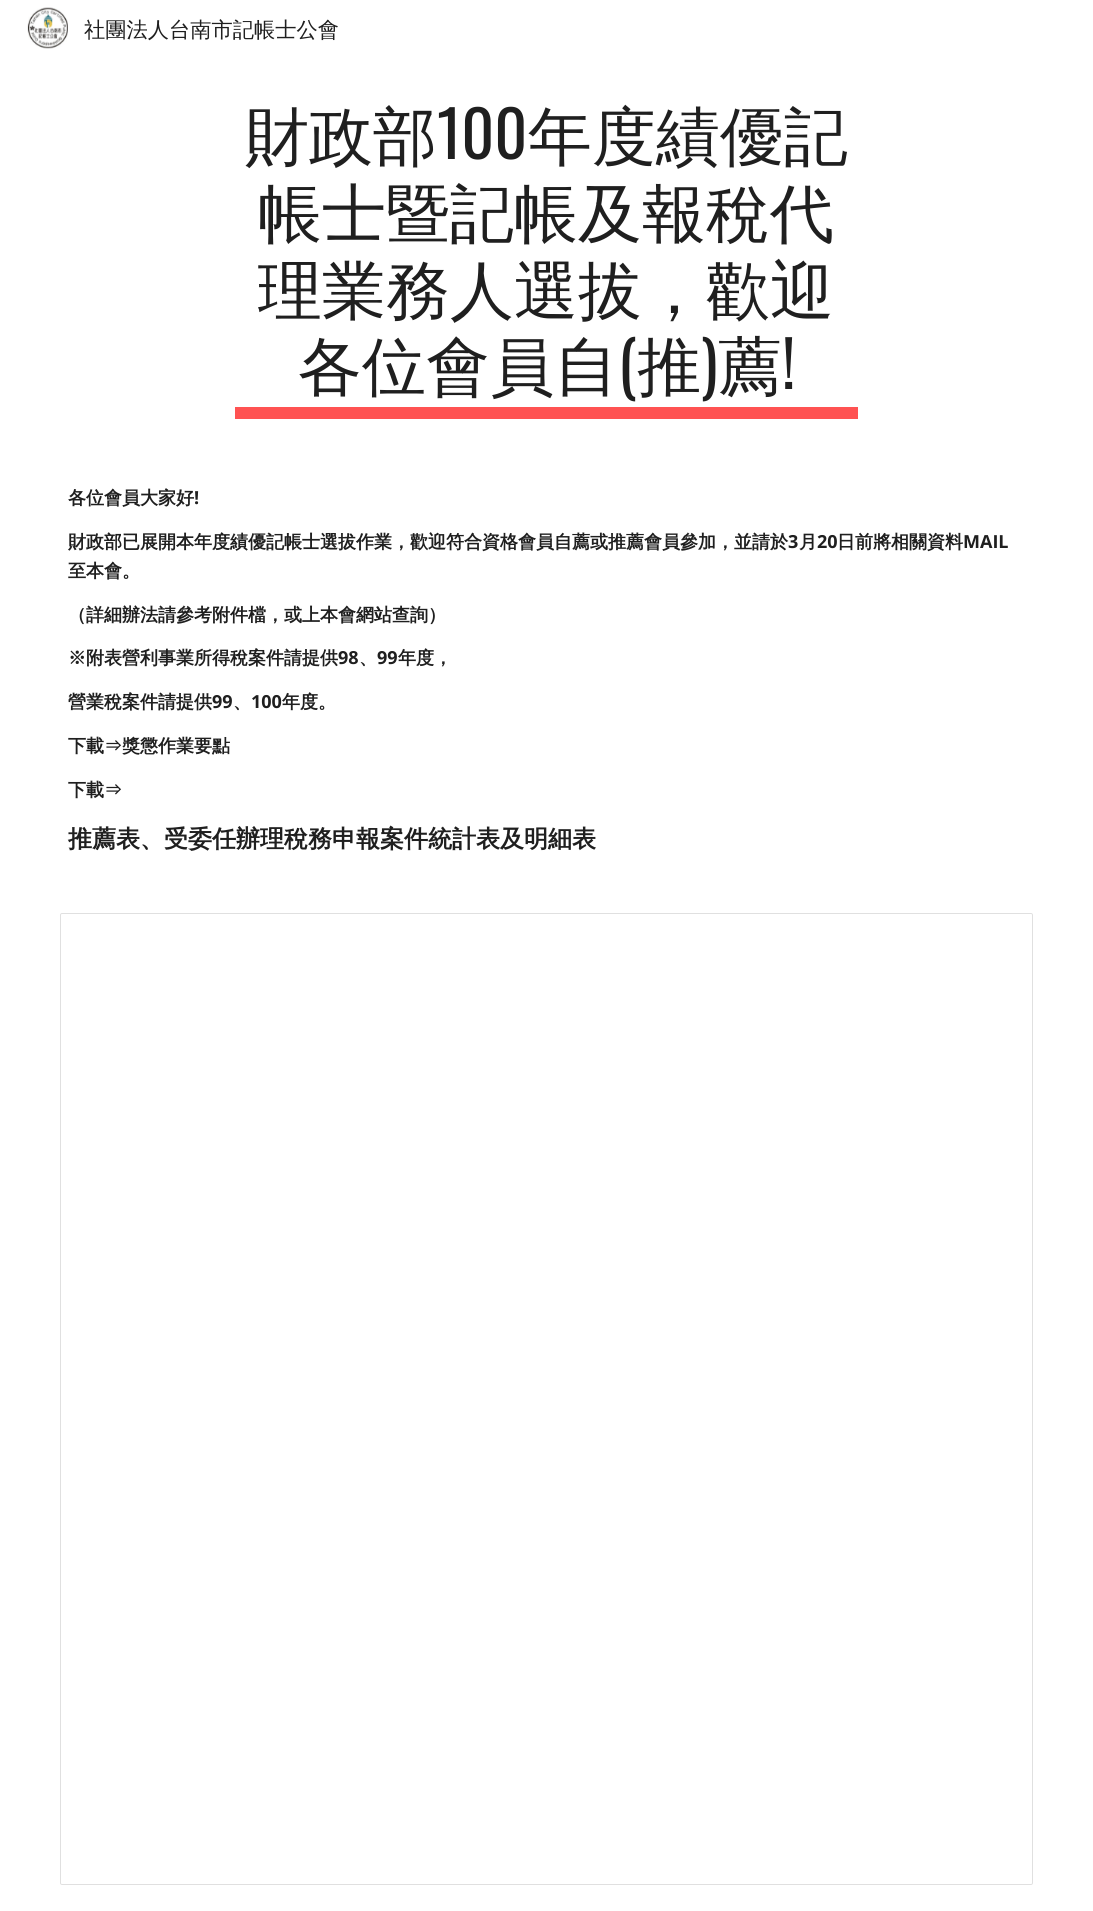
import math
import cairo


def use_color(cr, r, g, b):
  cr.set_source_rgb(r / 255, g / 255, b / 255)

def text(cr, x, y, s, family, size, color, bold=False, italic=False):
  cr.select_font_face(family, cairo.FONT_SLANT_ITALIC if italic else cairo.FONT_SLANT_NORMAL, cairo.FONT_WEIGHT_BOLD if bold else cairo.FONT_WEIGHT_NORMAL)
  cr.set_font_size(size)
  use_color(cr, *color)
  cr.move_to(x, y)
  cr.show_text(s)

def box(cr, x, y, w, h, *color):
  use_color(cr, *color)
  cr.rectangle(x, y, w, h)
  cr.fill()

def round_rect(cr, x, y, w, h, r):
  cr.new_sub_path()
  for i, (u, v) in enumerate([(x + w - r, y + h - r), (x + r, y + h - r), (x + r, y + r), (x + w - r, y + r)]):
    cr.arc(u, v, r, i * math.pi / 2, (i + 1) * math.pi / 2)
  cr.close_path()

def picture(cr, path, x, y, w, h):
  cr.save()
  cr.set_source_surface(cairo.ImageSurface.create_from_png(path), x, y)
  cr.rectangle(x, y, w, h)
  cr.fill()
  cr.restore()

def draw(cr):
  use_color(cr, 255, 255, 255)
  cr.paint()
  picture(cr, "img_01.png", 27, 7, 41, 42)
  box(cr, 235, 407, 623, 12, 255, 82, 82)
  round_rect(cr, 60.5, 913.5, 972, 971, 1.5)
  use_color(cr, 224, 224, 224)
  cr.set_line_width(1)
  cr.stroke()
  text(cr, 84, 37, "社團法人台南市記帳士公會", "WenQuanYi Zen Hei Medium", 21.25, (31, 31, 31))
  text(cr, 245, 159, "財政部", "WenQuanYi Zen Hei Medium", 64, (31, 31, 31))
  text(cr, 437, 159, "100", "Oswald", 64, (31, 31, 31))
  text(cr, 528, 159, "年度績優記", "WenQuanYi Zen Hei Medium", 64, (31, 31, 31))
  text(cr, 258, 236, "帳士暨記帳及報稅代", "WenQuanYi Zen Hei Medium", 64, (31, 31, 31))
  text(cr, 258, 313, "理業務人選拔，歡迎", "WenQuanYi Zen Hei Medium", 64, (31, 31, 31))
  text(cr, 298, 389, "各位會員自 推", "WenQuanYi Zen Hei Medium", 64, (31, 31, 31))
  text(cr, 718, 389, "薦", "WenQuanYi Zen Hei Medium", 64, (31, 31, 31))
  text(cr, 618, 389, "(", "Oswald", 64, (31, 31, 31))
  text(cr, 701, 389, ")", "Oswald", 64, (31, 31, 31))
  text(cr, 782, 389, "!", "Oswald", 64, (31, 31, 31))
  text(cr, 68, 504, "各位會員大家好", "WenQuanYi Zen Hei", 18, (31, 31, 31), bold=True)
  text(cr, 194, 504, "!", "Open Sans", 18, (31, 31, 31), bold=True)
  text(cr, 68, 548, "財政部已展開本年度績優記帳士選拔作業，歡迎符合資格會員自薦或推薦會員參加，並請於", "WenQuanYi Zen Hei", 18, (31, 31, 31), bold=True)
  text(cr, 788, 548, "3", "Open Sans", 18, (31, 31, 31), bold=True)
  text(cr, 799, 548, "月", "WenQuanYi Zen Hei", 18, (31, 31, 31), bold=True)
  text(cr, 817, 548, "20", "Open Sans", 18, (31, 31, 31), bold=True)
  text(cr, 837, 548, "日前將相關資料", "WenQuanYi Zen Hei", 18, (31, 31, 31), bold=True)
  text(cr, 963, 548, "MAIL", "Open Sans", 18, (31, 31, 31), bold=True)
  text(cr, 68, 577, "至本會。", "WenQuanYi Zen Hei", 18, (31, 31, 31), bold=True)
  text(cr, 68, 621, "（詳細辦法請參考附件檔，或上本會網站查詢）", "WenQuanYi Zen Hei", 18, (31, 31, 31), bold=True)
  text(cr, 68, 664, "※附表營利事業所得稅案件請提供", "WenQuanYi Zen Hei", 18, (31, 31, 31), bold=True)
  text(cr, 338, 664, "98", "Open Sans", 18, (31, 31, 31), bold=True)
  text(cr, 359, 664, "、", "WenQuanYi Zen Hei", 18, (31, 31, 31), bold=True)
  text(cr, 377, 664, "99", "Open Sans", 18, (31, 31, 31), bold=True)
  text(cr, 398, 664, "年度，", "WenQuanYi Zen Hei", 18, (31, 31, 31), bold=True)
  text(cr, 68, 708, "營業稅案件請提供", "WenQuanYi Zen Hei", 18, (31, 31, 31), bold=True)
  text(cr, 212, 708, "99", "Open Sans", 18, (31, 31, 31), bold=True)
  text(cr, 233, 708, "、", "WenQuanYi Zen Hei", 18, (31, 31, 31), bold=True)
  text(cr, 251, 708, "100", "Open Sans", 18, (31, 31, 31), bold=True)
  text(cr, 282, 708, "年度。", "WenQuanYi Zen Hei", 18, (31, 31, 31), bold=True)
  text(cr, 68, 752, "下載⇒獎懲作業要點", "WenQuanYi Zen Hei", 18, (31, 31, 31), bold=True)
  text(cr, 68, 796, "下載⇒", "WenQuanYi Zen Hei", 18, (31, 31, 31), bold=True)
  text(cr, 68, 847, "推薦表、受委任辦理稅務申報案件統計表及明細表", "WenQuanYi Zen Hei", 24, (31, 31, 31), bold=True)


surface = cairo.ImageSurface(cairo.FORMAT_RGB24, 1093, 1911)
cr = cairo.Context(surface)
options = cairo.FontOptions()
options.set_hint_metrics(cairo.HINT_METRICS_OFF)
options.set_hint_style(cairo.HINT_STYLE_NONE)
cr.set_font_options(options)
cr.set_miter_limit(4)
draw(cr)
surface.write_to_png("out.png")
